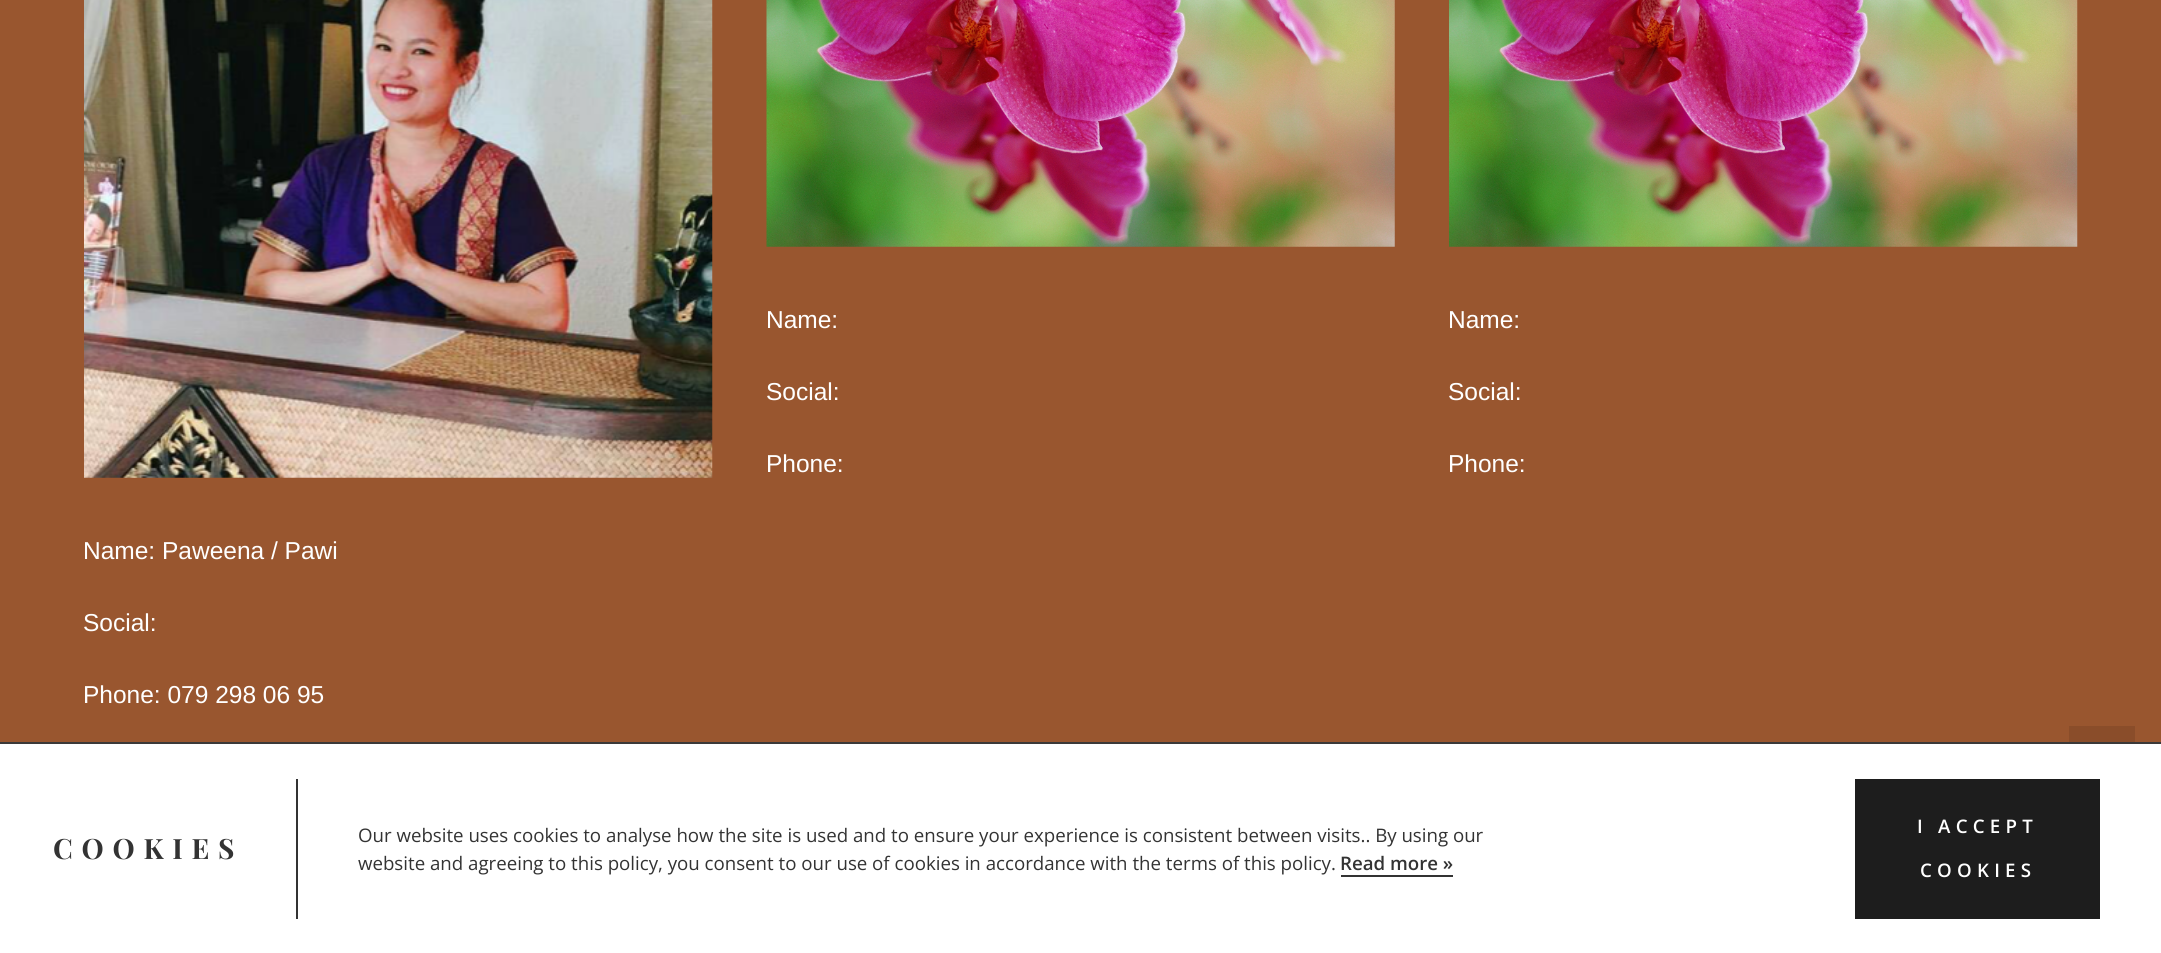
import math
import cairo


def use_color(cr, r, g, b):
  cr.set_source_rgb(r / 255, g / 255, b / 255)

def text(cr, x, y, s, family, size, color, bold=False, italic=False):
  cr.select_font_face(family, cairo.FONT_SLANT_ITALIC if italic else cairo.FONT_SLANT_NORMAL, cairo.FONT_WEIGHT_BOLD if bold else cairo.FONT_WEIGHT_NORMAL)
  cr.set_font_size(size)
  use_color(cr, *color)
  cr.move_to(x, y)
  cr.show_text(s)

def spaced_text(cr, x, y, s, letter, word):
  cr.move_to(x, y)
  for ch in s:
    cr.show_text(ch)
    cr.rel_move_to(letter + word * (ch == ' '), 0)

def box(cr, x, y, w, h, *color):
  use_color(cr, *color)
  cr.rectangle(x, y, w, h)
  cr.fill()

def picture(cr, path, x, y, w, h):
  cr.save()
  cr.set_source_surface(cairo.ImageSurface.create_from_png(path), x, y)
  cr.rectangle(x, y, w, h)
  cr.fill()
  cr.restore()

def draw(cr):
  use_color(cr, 153, 86, 47)
  cr.paint()
  picture(cr, "img_01.png", 766, 0, 629, 247)
  picture(cr, "img_02.png", 1449, 0, 629, 247)
  picture(cr, "img_03.png", 84, 0, 629, 478)
  box(cr, 2069, 726, 66, 16, 138, 77, 42)
  box(cr, 0, 744, 2161, 209, 255, 255, 255)
  box(cr, 0, 742, 2161, 2, 59, 57, 57)
  box(cr, 296, 779, 2, 140, 51, 51, 51)
  box(cr, 1341, 875, 112, 2, 51, 51, 51)
  box(cr, 1855, 779, 245, 140, 29, 29, 29)
  text(cr, 766, 328, "Name:", "Arimo", 24.5, (255, 255, 255))
  text(cr, 766, 400, "Social:", "Arimo", 24.5, (255, 255, 255))
  text(cr, 766, 472, "Phone:", "Arimo", 24.5, (255, 255, 255))
  text(cr, 1448, 328, "Name:", "Arimo", 24.5, (255, 255, 255))
  text(cr, 1448, 400, "Social:", "Arimo", 24.5, (255, 255, 255))
  text(cr, 1448, 472, "Phone:", "Arimo", 24.5, (255, 255, 255))
  text(cr, 83, 559, "Name: Paweena / Pawi", "Arimo", 24.5, (255, 255, 255))
  text(cr, 83, 631, "Social:", "Arimo", 24.5, (255, 255, 255))
  text(cr, 83, 703, "Phone: 079 298 06 95", "Arimo", 24.5, (255, 255, 255))
  cr.select_font_face("Playfair Display SC", cairo.FONT_SLANT_NORMAL, cairo.FONT_WEIGHT_BOLD)
  cr.set_font_size(28)
  use_color(cr, 51, 51, 51)
  spaced_text(cr, 53, 859, "COOKIES", 8.75, 0)
  text(cr, 358, 842, "Our website uses cookies to analyse how the site is used and to ensure your experience is consistent between visits.. By using our", "Open Sans", 18.67, (51, 51, 51))
  text(cr, 358, 870, "website and agreeing to this policy, you consent to our use of cookies in accordance with the terms of this policy.", "Open Sans", 18.67, (51, 51, 51))
  text(cr, 1340, 870, "Read more »", "Open Sans SemiBold", 18.67, (51, 51, 51))
  use_color(cr, 255, 255, 255)
  spaced_text(cr, 1917, 833, "I ACCEPT", 5.25, 0)
  spaced_text(cr, 1920, 877, "COOKIES", 5.25, 0)


surface = cairo.ImageSurface(cairo.FORMAT_RGB24, 2161, 953)
cr = cairo.Context(surface)
options = cairo.FontOptions()
options.set_hint_metrics(cairo.HINT_METRICS_OFF)
options.set_hint_style(cairo.HINT_STYLE_NONE)
cr.set_font_options(options)
cr.set_miter_limit(4)
draw(cr)
surface.write_to_png("out.png")
